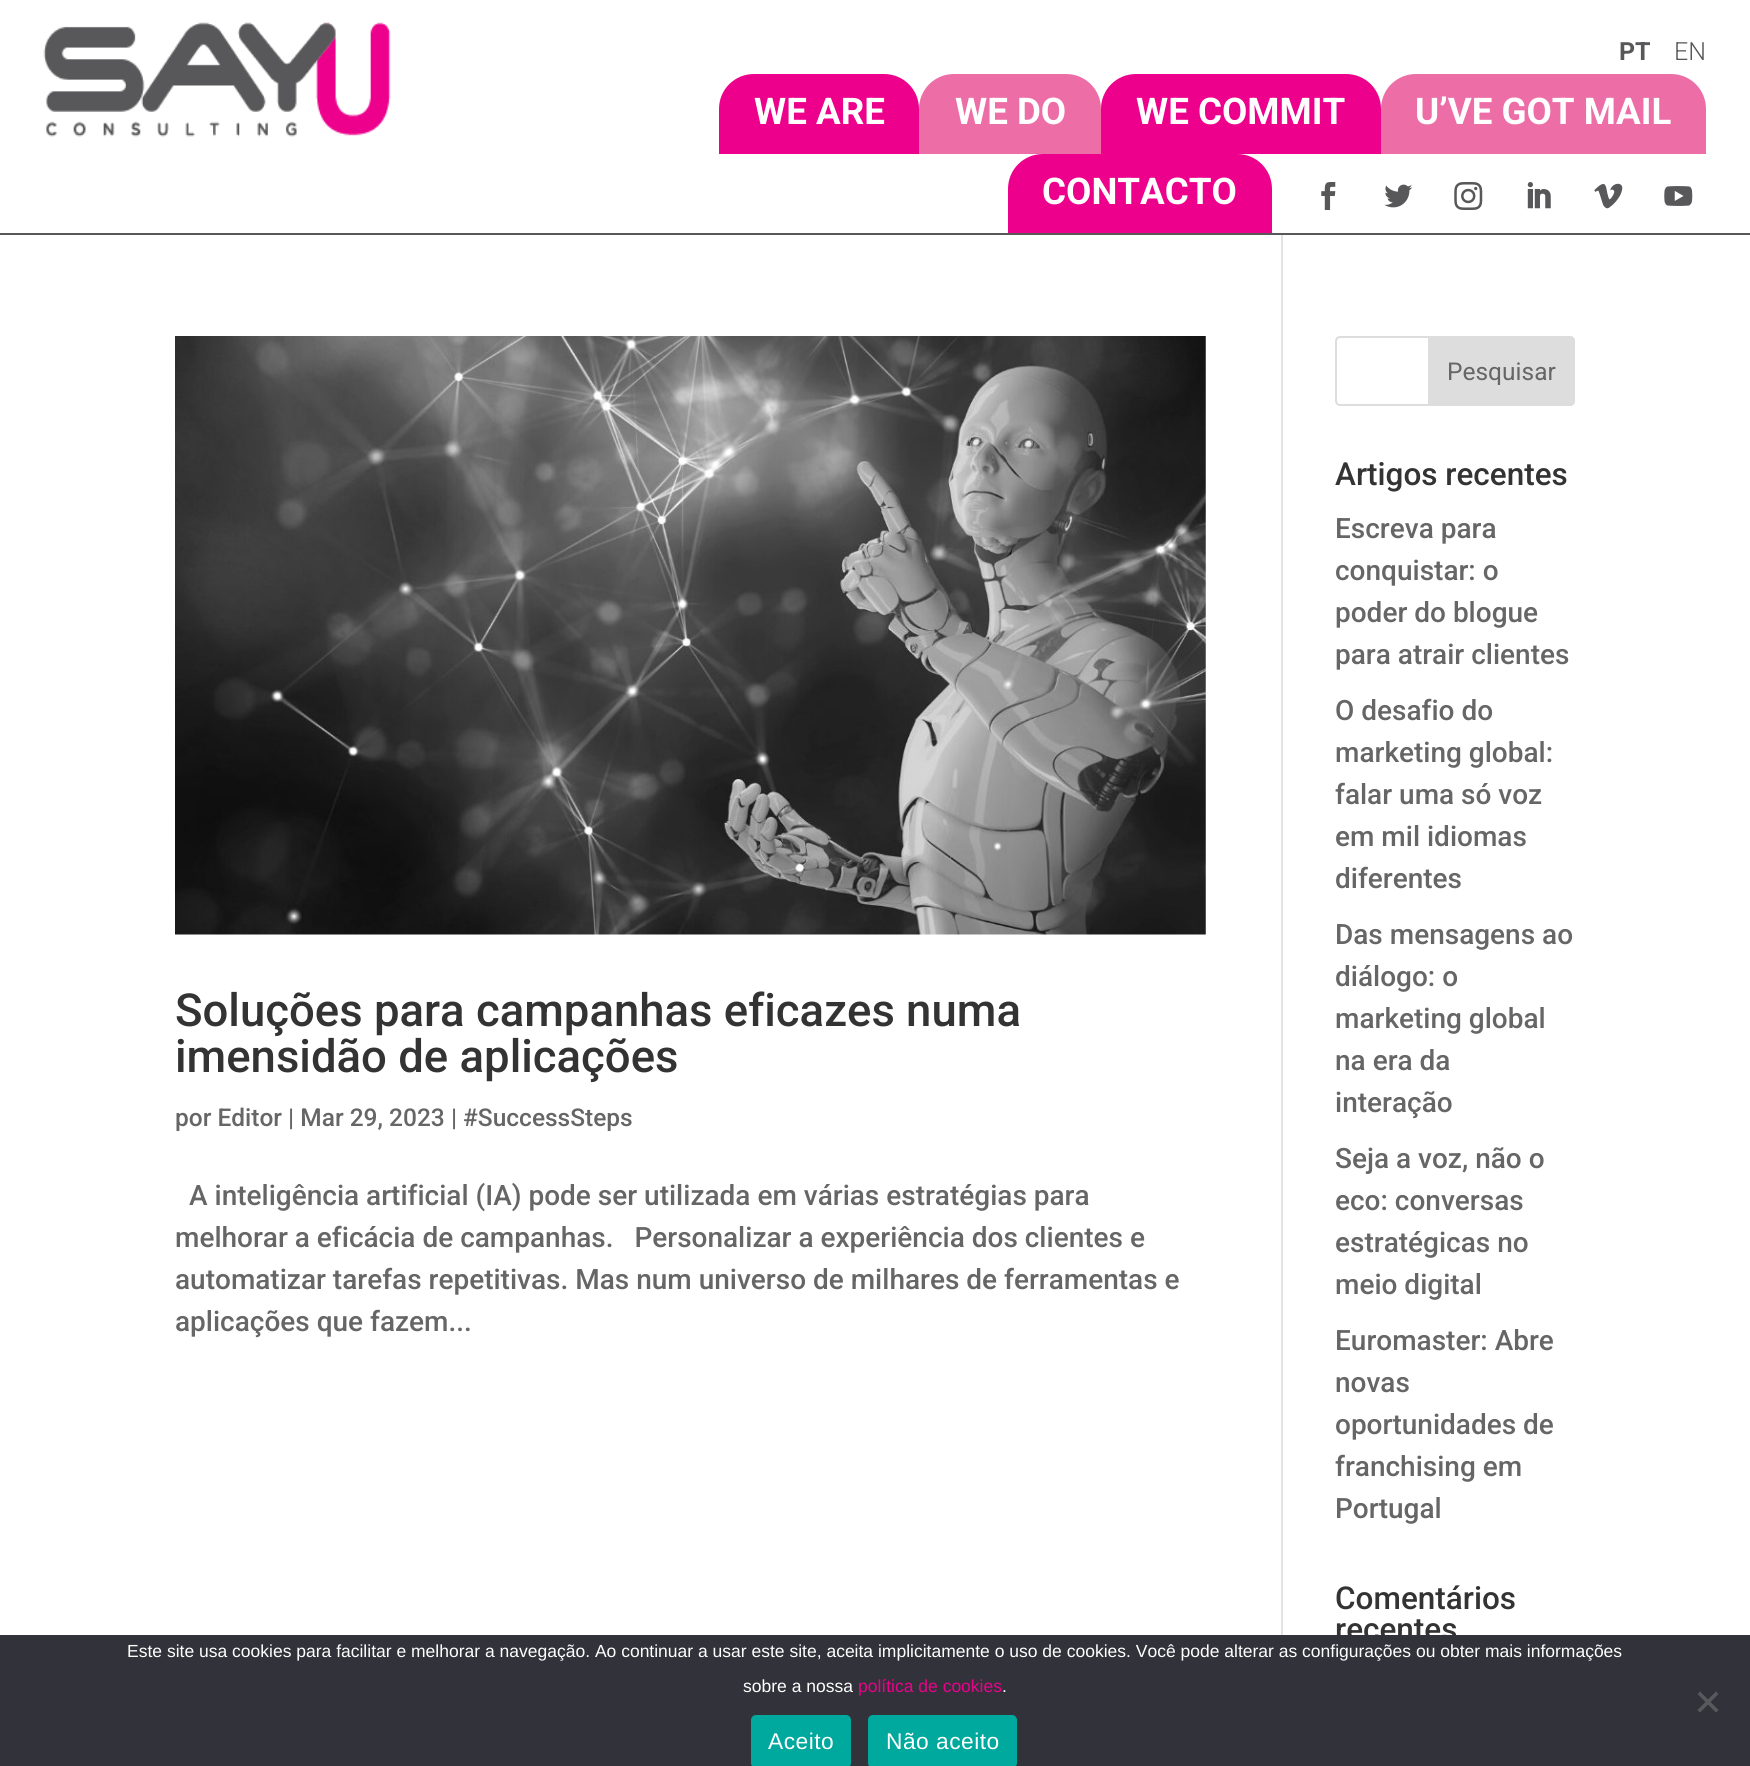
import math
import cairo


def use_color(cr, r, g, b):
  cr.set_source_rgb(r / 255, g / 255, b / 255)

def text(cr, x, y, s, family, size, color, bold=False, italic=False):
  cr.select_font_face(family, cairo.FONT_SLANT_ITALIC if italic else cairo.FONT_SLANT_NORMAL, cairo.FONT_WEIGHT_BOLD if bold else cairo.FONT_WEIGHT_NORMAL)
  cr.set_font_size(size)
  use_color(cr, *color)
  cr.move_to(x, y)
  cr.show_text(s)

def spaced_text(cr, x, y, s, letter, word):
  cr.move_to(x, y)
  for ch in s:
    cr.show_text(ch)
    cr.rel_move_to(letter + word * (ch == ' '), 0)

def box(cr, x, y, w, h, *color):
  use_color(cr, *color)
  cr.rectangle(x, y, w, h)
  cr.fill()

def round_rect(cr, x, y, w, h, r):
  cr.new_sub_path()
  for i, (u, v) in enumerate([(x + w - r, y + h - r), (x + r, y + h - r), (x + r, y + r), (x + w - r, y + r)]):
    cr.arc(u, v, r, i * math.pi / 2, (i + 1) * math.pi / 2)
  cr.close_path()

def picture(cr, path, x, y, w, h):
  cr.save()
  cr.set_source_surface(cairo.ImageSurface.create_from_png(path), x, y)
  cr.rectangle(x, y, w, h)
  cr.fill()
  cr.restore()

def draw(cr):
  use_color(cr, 255, 255, 255)
  cr.paint()
  box(cr, 0, 233, 1750, 2, 88, 88, 90)
  picture(cr, "img_01.png", 43, 22, 348, 115)
  use_color(cr, 236, 0, 140)
  cr.new_path()
  cr.move_to(754, 74)
  cr.line_to(884, 74)
  cr.curve_to(903.5, 74, 919, 89.5, 919, 109)
  cr.line_to(919, 154)
  cr.line_to(719, 154)
  cr.line_to(719, 109)
  cr.curve_to(719, 89.5, 734.5, 74, 754, 74)
  cr.close_path()
  cr.fill()
  use_color(cr, 237, 110, 167)
  cr.new_path()
  cr.move_to(954, 74)
  cr.line_to(1066, 74)
  cr.curve_to(1085.5, 74, 1101, 89.5, 1101, 109)
  cr.line_to(1101, 154)
  cr.line_to(919, 154)
  cr.line_to(919, 109)
  cr.curve_to(919, 89.5, 934.5, 74, 954, 74)
  cr.close_path()
  cr.fill()
  use_color(cr, 236, 0, 140)
  cr.new_path()
  cr.move_to(1136, 74)
  cr.line_to(1346, 74)
  cr.curve_to(1365.5, 74, 1381, 89.5, 1381, 109)
  cr.line_to(1381, 154)
  cr.line_to(1101, 154)
  cr.line_to(1101, 109)
  cr.curve_to(1101, 89.5, 1116.5, 74, 1136, 74)
  cr.close_path()
  cr.fill()
  use_color(cr, 237, 110, 167)
  cr.new_path()
  cr.move_to(1416, 74)
  cr.line_to(1671, 74)
  cr.curve_to(1690.5, 74, 1706, 89.5, 1706, 109)
  cr.line_to(1706, 154)
  cr.line_to(1381, 154)
  cr.line_to(1381, 109)
  cr.curve_to(1381, 89.5, 1396.5, 74, 1416, 74)
  cr.close_path()
  cr.fill()
  use_color(cr, 236, 0, 140)
  cr.new_path()
  cr.move_to(1043, 154)
  cr.line_to(1237, 154)
  cr.curve_to(1256.5, 154, 1272, 169.5, 1272, 189)
  cr.line_to(1272, 233)
  cr.line_to(1008, 233)
  cr.line_to(1008, 189)
  cr.curve_to(1008, 169.5, 1023.5, 154, 1043, 154)
  cr.close_path()
  cr.fill()
  picture(cr, "img_02.png", 1321, 182, 15, 28)
  picture(cr, "img_03.png", 1384, 184, 29, 24)
  picture(cr, "img_04.png", 1454, 182, 29, 28)
  picture(cr, "img_05.png", 1527, 182, 24, 27)
  picture(cr, "img_06.png", 1594, 183, 29, 26)
  picture(cr, "img_07.png", 1664, 186, 29, 20)
  box(cr, 1281, 235, 2, 1400, 226, 226, 226)
  picture(cr, "img_08.png", 175, 336, 1031, 599)
  round_rect(cr, 1336, 337, 238, 68, 4)
  use_color(cr, 221, 221, 221)
  cr.stroke()
  cr.new_path()
  cr.move_to(1429, 337)
  cr.line_to(1570, 337)
  cr.curve_to(1572, 337, 1574, 339, 1574, 341)
  cr.line_to(1574, 401)
  cr.curve_to(1574, 403, 1572, 405, 1570, 405)
  cr.line_to(1429, 405)
  cr.close_path()
  cr.fill_preserve()
  cr.stroke()
  text(cr, 1619, 60, "PT", "Roboto", 25, (88, 88, 90), bold=True)
  text(cr, 1674, 60, "EN", "Roboto Light", 25, (88, 88, 90))
  text(cr, 754, 124, "WE ARE", "Roboto", 36.75, (255, 255, 255), bold=True)
  text(cr, 955, 124, "WE DO", "Roboto", 36.75, (255, 255, 255), bold=True)
  text(cr, 1136, 124, "WE COMMIT", "Roboto", 36.75, (255, 255, 255), bold=True)
  text(cr, 1415, 124, "U’VE GOT MAIL", "Roboto", 36.75, (255, 255, 255), bold=True)
  text(cr, 1042, 204, "CONTACTO", "Roboto", 36.75, (255, 255, 255), bold=True)
  text(cr, 175, 1026, "Soluções para campanhas eficazes numa", "Roboto Medium", 45.5, (51, 51, 51))
  text(cr, 175, 1072, "imensidão de aplicações", "Roboto Medium", 45.5, (51, 51, 51))
  text(cr, 175, 1126, "por Editor | Mar 29, 2023 | #SuccessSteps", "Roboto Medium", 24.5, (102, 102, 102))
  text(cr, 189, 1205, "A inteligência artificial (IA) pode ser utilizada em várias estratégias para", "Roboto Medium", 28, (102, 102, 102))
  text(cr, 175, 1247, "melhorar a eficácia de campanhas.   Personalizar a experiência dos clientes e", "Roboto Medium", 28, (102, 102, 102))
  text(cr, 175, 1289, "automatizar tarefas repetitivas. Mas num universo de milhares de ferramentas e", "Roboto Medium", 28, (102, 102, 102))
  text(cr, 175, 1331, "aplicações que fazem...", "Roboto Medium", 28, (102, 102, 102))
  text(cr, 1447, 380, "Pesquisar", "Roboto", 24.5, (102, 102, 102))
  text(cr, 1335, 485, "Artigos recentes", "Roboto Medium", 31.5, (51, 51, 51))
  text(cr, 1335, 538, "Escreva para", "Roboto Medium", 28, (102, 102, 102))
  text(cr, 1335, 580, "conquistar: o", "Roboto Medium", 28, (102, 102, 102))
  text(cr, 1335, 622, "poder do blogue", "Roboto Medium", 28, (102, 102, 102))
  text(cr, 1335, 664, "para atrair clientes", "Roboto Medium", 28, (102, 102, 102))
  text(cr, 1335, 720, "O desafio do", "Roboto Medium", 28, (102, 102, 102))
  text(cr, 1335, 762, "marketing global:", "Roboto Medium", 28, (102, 102, 102))
  text(cr, 1335, 804, "falar uma só voz", "Roboto Medium", 28, (102, 102, 102))
  text(cr, 1335, 846, "em mil idiomas", "Roboto Medium", 28, (102, 102, 102))
  text(cr, 1335, 888, "diferentes", "Roboto Medium", 28, (102, 102, 102))
  text(cr, 1335, 944, "Das mensagens ao", "Roboto Medium", 28, (102, 102, 102))
  text(cr, 1335, 986, "diálogo: o", "Roboto Medium", 28, (102, 102, 102))
  text(cr, 1335, 1028, "marketing global", "Roboto Medium", 28, (102, 102, 102))
  text(cr, 1335, 1070, "na era da", "Roboto Medium", 28, (102, 102, 102))
  text(cr, 1335, 1112, "interação", "Roboto Medium", 28, (102, 102, 102))
  text(cr, 1335, 1168, "Seja a voz, não o", "Roboto Medium", 28, (102, 102, 102))
  text(cr, 1335, 1210, "eco: conversas", "Roboto Medium", 28, (102, 102, 102))
  text(cr, 1335, 1252, "estratégicas no", "Roboto Medium", 28, (102, 102, 102))
  text(cr, 1335, 1294, "meio digital", "Roboto Medium", 28, (102, 102, 102))
  text(cr, 1335, 1350, "Euromaster: Abre", "Roboto Medium", 28, (102, 102, 102))
  text(cr, 1335, 1392, "novas", "Roboto Medium", 28, (102, 102, 102))
  text(cr, 1335, 1434, "oportunidades de", "Roboto Medium", 28, (102, 102, 102))
  text(cr, 1335, 1476, "franchising em", "Roboto Medium", 28, (102, 102, 102))
  text(cr, 1335, 1518, "Portugal", "Roboto Medium", 28, (102, 102, 102))
  text(cr, 1335, 1609, "Comentários", "Roboto Medium", 31.5, (51, 51, 51))
  text(cr, 1335, 1640, "recentes", "Roboto Medium", 31.5, (51, 51, 51))
  box(cr, 0, 1635, 1750, 131, 50, 50, 58)
  text(cr, 127, 1657, "Este site usa cookies para facilitar e melhorar a navegação. Ao continuar a usar este site, aceita implicitamente o uso de cookies. Você pode alterar as configurações ou obter mais informações", "Liberation Sans", 17.5, (255, 255, 255))
  text(cr, 743, 1692, "sobre a nossa", "Liberation Sans", 17.5, (255, 255, 255))
  text(cr, 858, 1692, "política de cookies", "Liberation Sans", 17.5, (236, 0, 140))
  text(cr, 1002, 1692, ".", "Liberation Sans", 17.5, (255, 255, 255))
  use_color(cr, 89, 89, 93)
  cr.new_path()
  cr.move_to(1716, 1691.5)
  cr.line_to(1718.5, 1694)
  cr.line_to(1700, 1712.5)
  cr.line_to(1697.5, 1710)
  cr.close_path()
  cr.fill()
  cr.new_path()
  cr.move_to(1697.5, 1694)
  cr.line_to(1700, 1691.5)
  cr.line_to(1718.5, 1710)
  cr.line_to(1716, 1712.5)
  cr.close_path()
  cr.fill()
  use_color(cr, 0, 169, 157)
  round_rect(cr, 751, 1715, 100, 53, 5)
  cr.fill()
  cr.set_font_size(22.75)
  use_color(cr, 255, 255, 255)
  spaced_text(cr, 768, 1749, "Aceito", 0.5, 0)
  use_color(cr, 0, 169, 157)
  round_rect(cr, 868, 1715, 149, 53, 5)
  cr.fill()
  use_color(cr, 255, 255, 255)
  spaced_text(cr, 886, 1749, "Não aceito", 0.5, 0)


surface = cairo.ImageSurface(cairo.FORMAT_RGB24, 1750, 1766)
cr = cairo.Context(surface)
options = cairo.FontOptions()
options.set_hint_metrics(cairo.HINT_METRICS_OFF)
options.set_hint_style(cairo.HINT_STYLE_NONE)
cr.set_font_options(options)
cr.set_miter_limit(4)
draw(cr)
surface.write_to_png("out.png")
